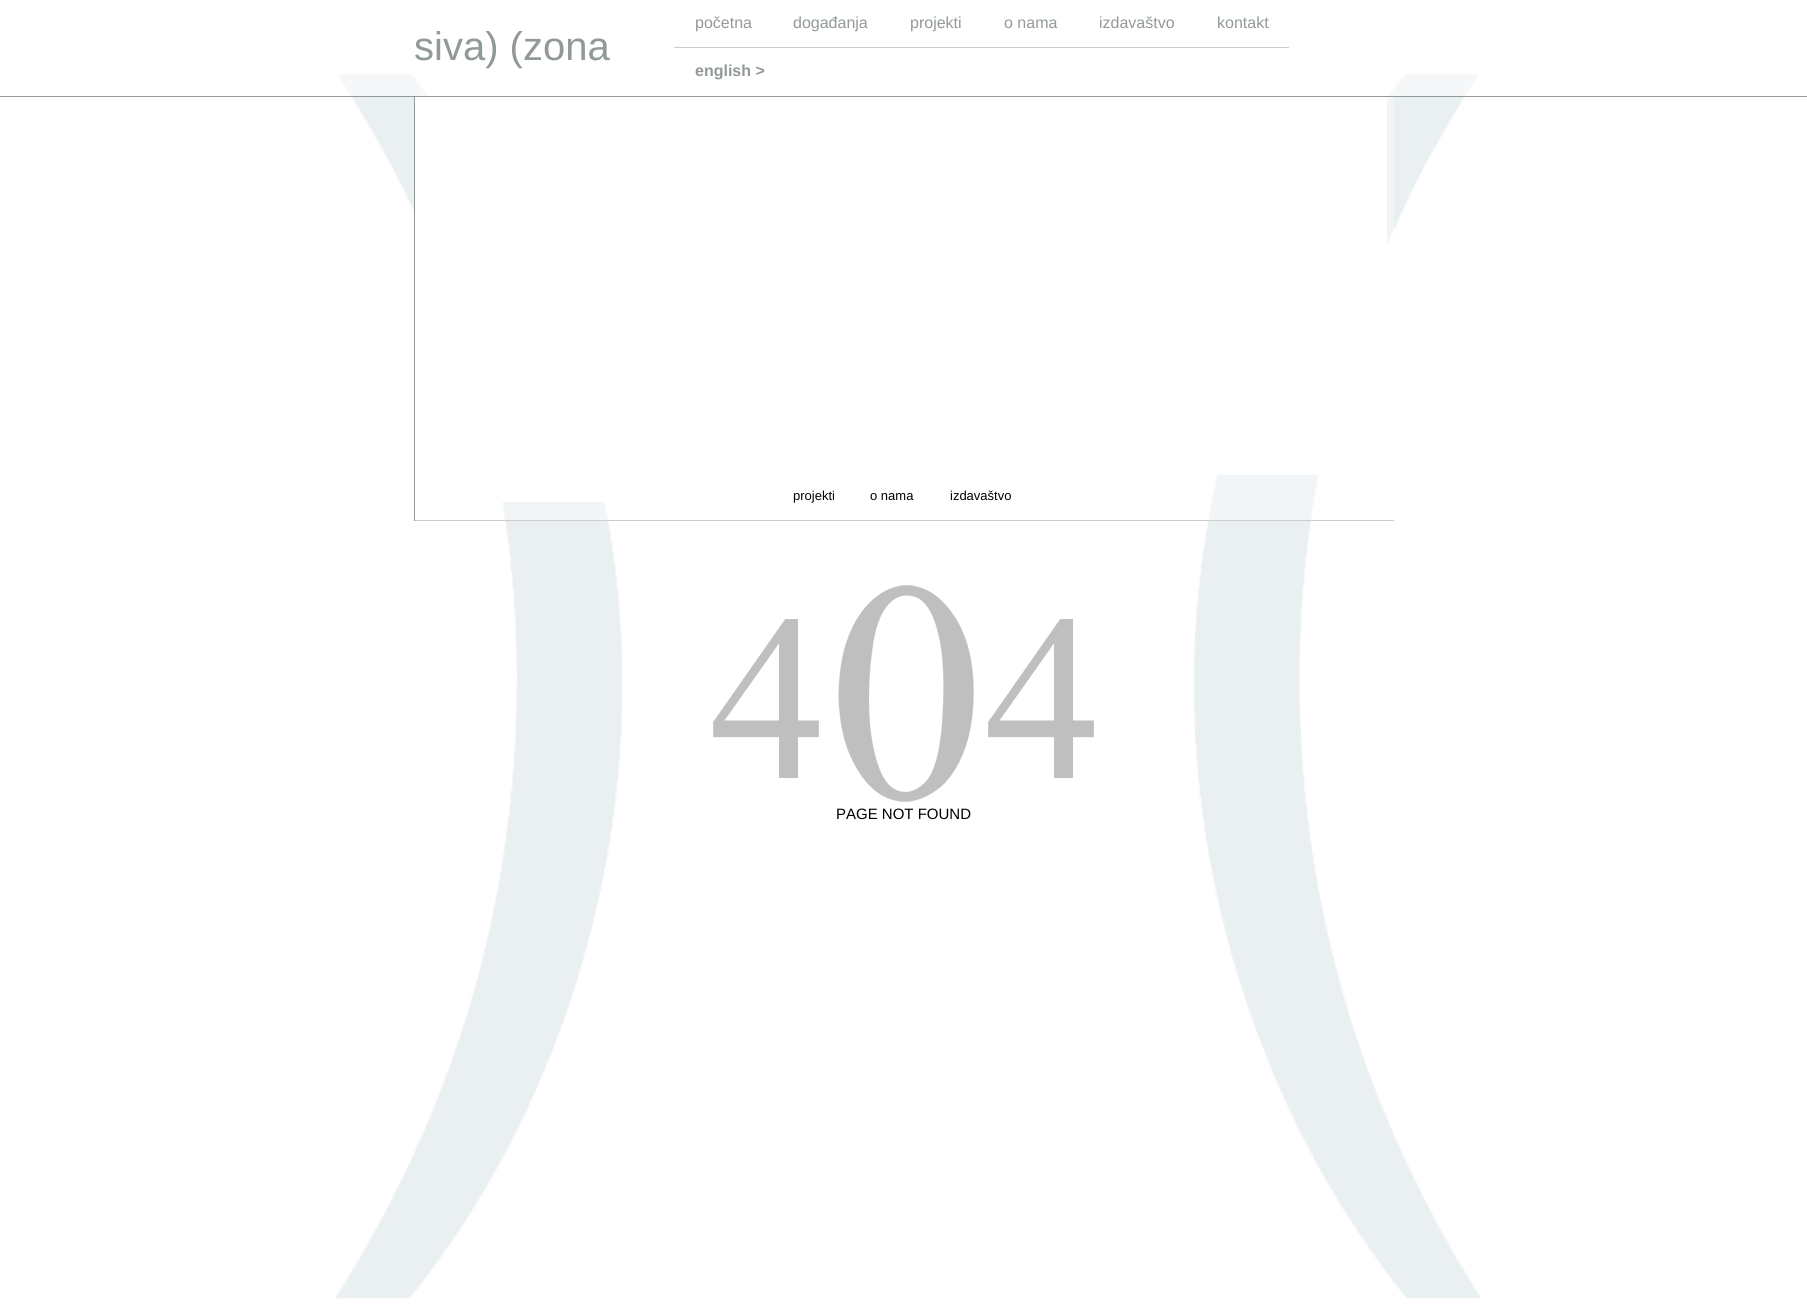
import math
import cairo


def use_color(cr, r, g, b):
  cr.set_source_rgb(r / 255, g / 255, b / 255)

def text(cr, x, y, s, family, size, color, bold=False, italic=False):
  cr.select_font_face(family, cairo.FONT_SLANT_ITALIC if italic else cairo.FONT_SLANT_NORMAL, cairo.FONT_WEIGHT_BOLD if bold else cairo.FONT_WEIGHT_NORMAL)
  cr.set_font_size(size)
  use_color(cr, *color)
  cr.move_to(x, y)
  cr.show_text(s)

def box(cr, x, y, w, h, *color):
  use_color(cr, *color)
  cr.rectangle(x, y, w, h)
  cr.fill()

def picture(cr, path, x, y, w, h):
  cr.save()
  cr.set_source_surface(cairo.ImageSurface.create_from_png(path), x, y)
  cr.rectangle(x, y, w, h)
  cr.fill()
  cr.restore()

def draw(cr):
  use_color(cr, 255, 255, 255)
  cr.paint()
  picture(cr, "img_01.png", 335, 73, 1147, 1226)
  cr.set_source_rgba(1, 1, 1, 0.5)
  cr.rectangle(337, 73, 1142, 23)
  cr.fill()
  box(cr, 674, 47, 615, 1, 204, 204, 204)
  box(cr, 0, 96, 1807, 1, 146, 153, 153)
  cr.set_source_rgba(1, 1, 1, 0.35)
  cr.rectangle(415, 97, 979, 423)
  cr.fill()
  box(cr, 414, 97, 1, 424, 146, 153, 153)
  box(cr, 415, 520, 979, 1, 204, 204, 204)
  box(cr, 415, 97, 32, 27, 255, 255, 255)
  box(cr, 1369, 98, 18, 26, 255, 255, 255)
  box(cr, 415, 124, 36, 108, 255, 255, 255)
  box(cr, 451, 129, 14, 22, 255, 255, 255)
  box(cr, 1352, 124, 35, 27, 255, 255, 255)
  box(cr, 451, 151, 30, 27, 255, 255, 255)
  box(cr, 1335, 152, 16, 26, 255, 255, 255)
  box(cr, 1351, 151, 36, 27, 255, 255, 255)
  box(cr, 451, 178, 36, 54, 255, 255, 255)
  box(cr, 487, 188, 10, 17, 255, 255, 255)
  box(cr, 1320, 178, 67, 27, 255, 255, 255)
  box(cr, 487, 205, 24, 27, 255, 255, 255)
  box(cr, 1305, 214, 10, 18, 255, 255, 255)
  box(cr, 1315, 205, 72, 27, 255, 255, 255)
  box(cr, 423, 232, 100, 27, 255, 255, 255)
  box(cr, 523, 257, 1, 2, 255, 255, 255)
  box(cr, 1292, 232, 95, 27, 255, 255, 255)
  box(cr, 434, 259, 102, 27, 255, 255, 255)
  box(cr, 1280, 259, 102, 27, 255, 255, 255)
  box(cr, 445, 286, 6, 16, 255, 255, 255)
  box(cr, 451, 286, 97, 27, 255, 255, 255)
  box(cr, 1268, 288, 11, 25, 255, 255, 255)
  box(cr, 1279, 286, 93, 27, 255, 255, 255)
  box(cr, 454, 313, 105, 27, 255, 255, 255)
  box(cr, 1258, 313, 104, 27, 255, 255, 255)
  box(cr, 463, 340, 96, 27, 255, 255, 255)
  box(cr, 559, 341, 10, 26, 255, 255, 255)
  box(cr, 1248, 340, 103, 27, 255, 255, 255)
  box(cr, 1351, 340, 2, 3, 255, 255, 255)
  box(cr, 472, 367, 105, 27, 255, 255, 255)
  box(cr, 1240, 383, 3, 11, 255, 255, 255)
  box(cr, 1243, 367, 102, 27, 255, 255, 255)
  box(cr, 479, 394, 107, 27, 255, 255, 255)
  box(cr, 1230, 394, 107, 27, 255, 255, 255)
  box(cr, 487, 421, 105, 27, 255, 255, 255)
  box(cr, 1224, 421, 106, 27, 255, 255, 255)
  box(cr, 492, 448, 103, 27, 255, 255, 255)
  box(cr, 595, 458, 4, 17, 255, 255, 255)
  box(cr, 1217, 448, 107, 27, 255, 255, 255)
  box(cr, 498, 475, 107, 27, 255, 255, 255)
  picture(cr, "img_02.png", 713, 585, 381, 217)
  text(cr, 414, 60, "siva) (zona", "Liberation Sans", 40, (146, 153, 153))
  text(cr, 695, 28, "početna", "Liberation Sans", 16, (146, 153, 153))
  text(cr, 793, 28, "događanja", "Liberation Sans", 16, (146, 153, 153))
  text(cr, 910, 28, "projekti", "Liberation Sans", 16, (146, 153, 153))
  text(cr, 1004, 28, "o nama", "Liberation Sans", 16, (146, 153, 153))
  text(cr, 1099, 28, "izdavaštvo", "Liberation Sans", 16, (146, 153, 153))
  text(cr, 1217, 28, "kontakt", "Liberation Sans", 16, (146, 153, 153))
  text(cr, 695, 76, "english >", "Liberation Sans", 16, (146, 153, 153), bold=True)
  text(cr, 793, 500, "projekti", "Liberation Sans", 13, (0, 0, 0))
  text(cr, 870, 500, "o nama", "Liberation Sans", 13, (0, 0, 0))
  text(cr, 950, 500, "izdavaštvo", "Liberation Sans", 13, (0, 0, 0))
  text(cr, 836, 819, "PAGE NOT FOUND", "Liberation Sans", 15, (0, 0, 0))


surface = cairo.ImageSurface(cairo.FORMAT_RGB24, 1807, 1306)
cr = cairo.Context(surface)
options = cairo.FontOptions()
options.set_hint_metrics(cairo.HINT_METRICS_OFF)
options.set_hint_style(cairo.HINT_STYLE_NONE)
cr.set_font_options(options)
cr.set_miter_limit(4)
draw(cr)
surface.write_to_png("out.png")
